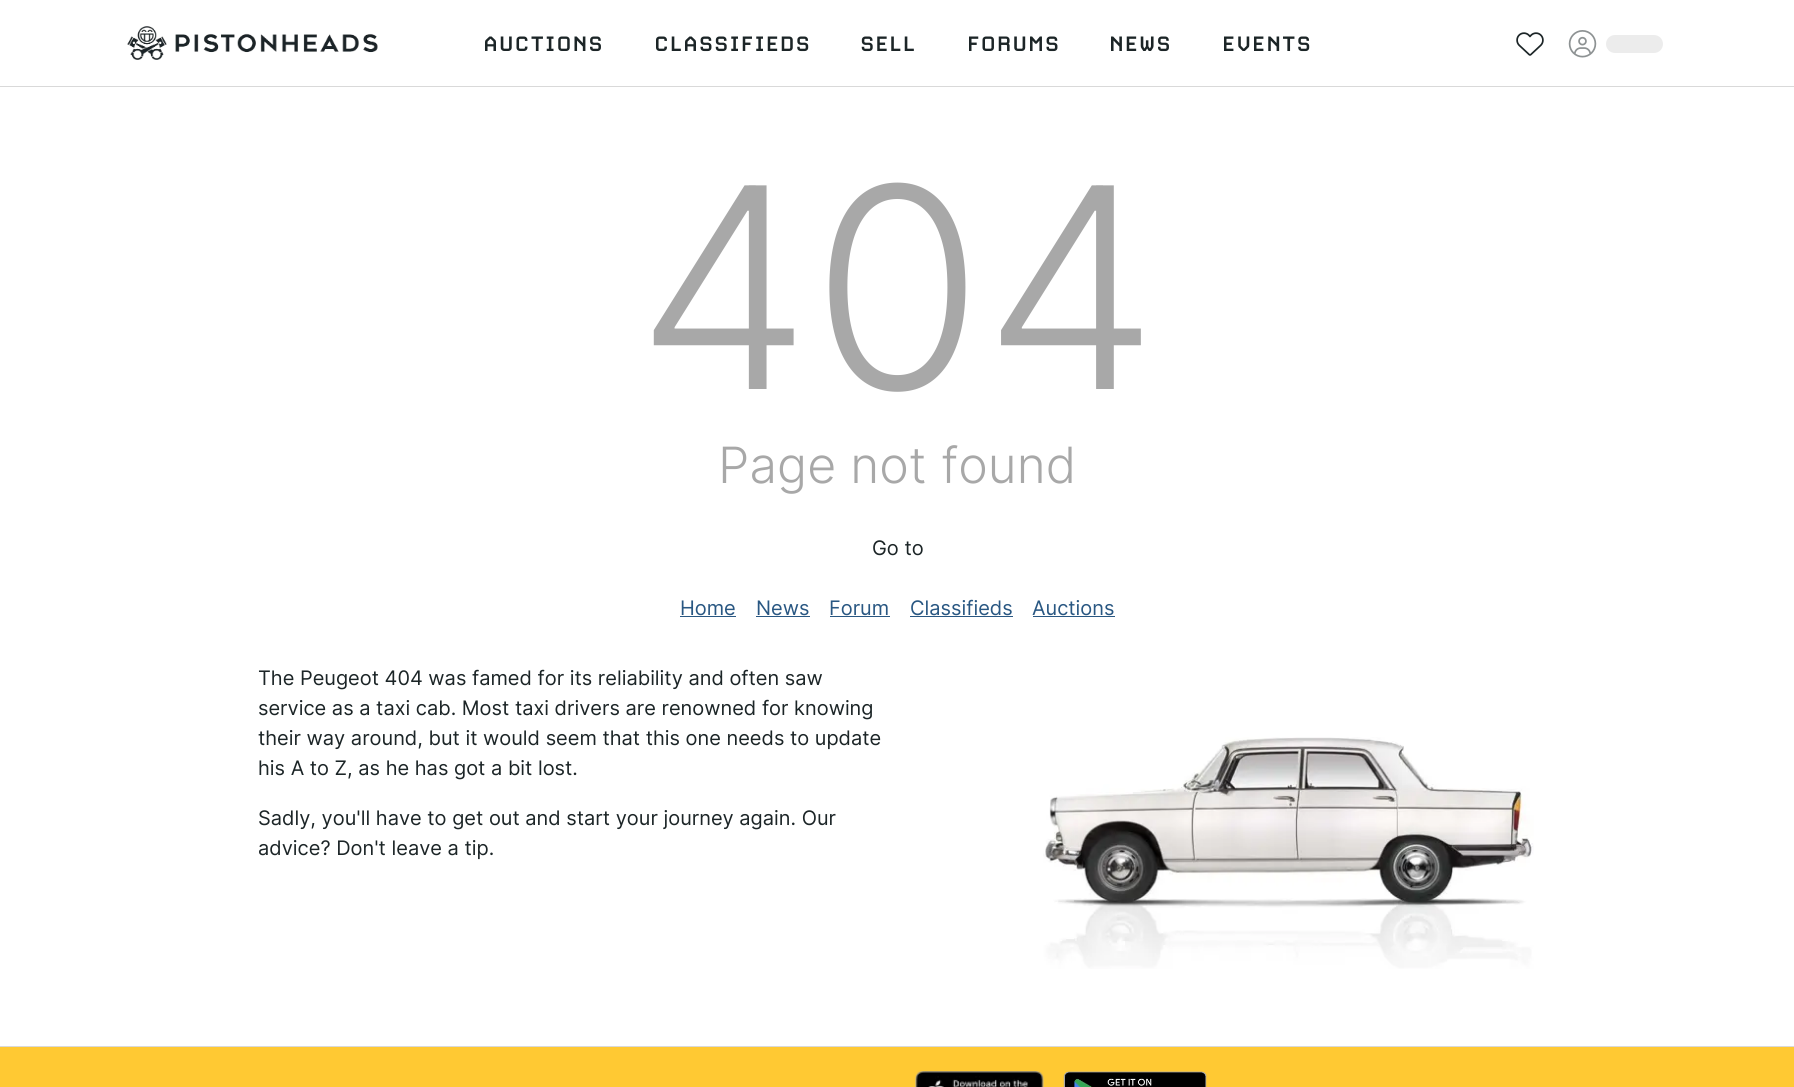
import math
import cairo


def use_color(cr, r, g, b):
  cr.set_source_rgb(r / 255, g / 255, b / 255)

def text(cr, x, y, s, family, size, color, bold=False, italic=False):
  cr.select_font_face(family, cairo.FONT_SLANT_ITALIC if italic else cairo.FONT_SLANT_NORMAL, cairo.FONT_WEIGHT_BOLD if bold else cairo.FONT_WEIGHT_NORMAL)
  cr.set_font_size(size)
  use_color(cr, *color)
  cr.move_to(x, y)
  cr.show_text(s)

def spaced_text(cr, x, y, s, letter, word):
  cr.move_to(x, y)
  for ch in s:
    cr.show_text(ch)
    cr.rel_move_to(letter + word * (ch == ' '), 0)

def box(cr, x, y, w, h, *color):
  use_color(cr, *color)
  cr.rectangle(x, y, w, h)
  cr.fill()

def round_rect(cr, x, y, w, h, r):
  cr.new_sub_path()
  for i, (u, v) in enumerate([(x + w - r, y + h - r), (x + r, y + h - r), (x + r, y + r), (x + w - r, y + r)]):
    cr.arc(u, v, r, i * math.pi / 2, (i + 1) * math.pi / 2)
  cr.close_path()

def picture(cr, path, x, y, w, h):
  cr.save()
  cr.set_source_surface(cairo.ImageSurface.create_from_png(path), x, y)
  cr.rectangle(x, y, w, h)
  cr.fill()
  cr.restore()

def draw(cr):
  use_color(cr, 255, 255, 255)
  cr.paint()
  box(cr, 0, 86, 1794, 1, 217, 217, 217)
  picture(cr, "img_01.png", 127, 26, 251, 34)
  picture(cr, "img_02.png", 1516, 32, 28, 24)
  picture(cr, "img_03.png", 1568, 30, 29, 28)
  use_color(cr, 236, 236, 236)
  round_rect(cr, 1606, 35, 57, 18, 9)
  cr.fill()
  box(cr, 680, 616, 56, 1, 41, 87, 130)
  box(cr, 756, 616, 54, 1, 41, 87, 130)
  box(cr, 830, 616, 60, 1, 41, 87, 130)
  box(cr, 910, 616, 103, 1, 41, 87, 130)
  box(cr, 1033, 616, 82, 1, 41, 87, 130)
  picture(cr, "img_04.png", 1043, 737, 491, 232)
  box(cr, 0, 1047, 1794, 40, 255, 201, 51)
  box(cr, 0, 1046, 1794, 1, 217, 217, 217)
  picture(cr, "img_05.png", 915, 1071, 129, 16)
  picture(cr, "img_06.png", 1063, 1071, 144, 16)
  cr.select_font_face("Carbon", cairo.FONT_SLANT_NORMAL, cairo.FONT_WEIGHT_BOLD)
  cr.set_font_size(25)
  use_color(cr, 28, 37, 39)
  spaced_text(cr, 483, 51, "AUCTIONS", 0.75, 0)
  spaced_text(cr, 654, 51, "CLASSIFIEDS", 0.75, 0)
  spaced_text(cr, 860, 51, "SELL", 0.75, 0)
  spaced_text(cr, 967, 51, "FORUMS", 0.75, 0)
  spaced_text(cr, 1109, 51, "NEWS", 0.75, 0)
  spaced_text(cr, 1222, 51, "EVENTS", 0.75, 0)
  text(cr, 636, 389, "404", "Inter Light", 280, (168, 168, 168))
  text(cr, 718, 483, "Page not found", "Inter Light", 50, (168, 168, 168))
  text(cr, 872, 555, "Go to", "Inter", 20, (28, 37, 39))
  text(cr, 680, 615, "Home", "Inter", 20, (41, 87, 130))
  text(cr, 756, 615, "News", "Inter", 20, (41, 87, 130))
  text(cr, 829, 615, "Forum", "Inter", 20, (41, 87, 130))
  text(cr, 910, 615, "Classifieds", "Inter", 20, (41, 87, 130))
  text(cr, 1032, 615, "Auctions", "Inter", 20, (41, 87, 130))
  text(cr, 258, 685, "The Peugeot 404 was famed for its reliability and often saw", "Inter", 20, (28, 37, 39))
  text(cr, 258, 715, "service as a taxi cab. Most taxi drivers are renowned for knowing", "Inter", 20, (28, 37, 39))
  text(cr, 258, 745, "their way around, but it would seem that this one needs to update", "Inter", 20, (28, 37, 39))
  text(cr, 258, 775, "his A to Z, as he has got a bit lost.", "Inter", 20, (28, 37, 39))
  text(cr, 258, 825, "Sadly, you'll have to get out and start your journey again. Our", "Inter", 20, (28, 37, 39))
  text(cr, 258, 855, "advice? Don't leave a tip.", "Inter", 20, (28, 37, 39))


surface = cairo.ImageSurface(cairo.FORMAT_RGB24, 1794, 1087)
cr = cairo.Context(surface)
options = cairo.FontOptions()
options.set_hint_metrics(cairo.HINT_METRICS_OFF)
options.set_hint_style(cairo.HINT_STYLE_NONE)
cr.set_font_options(options)
cr.set_miter_limit(4)
draw(cr)
surface.write_to_png("out.png")
